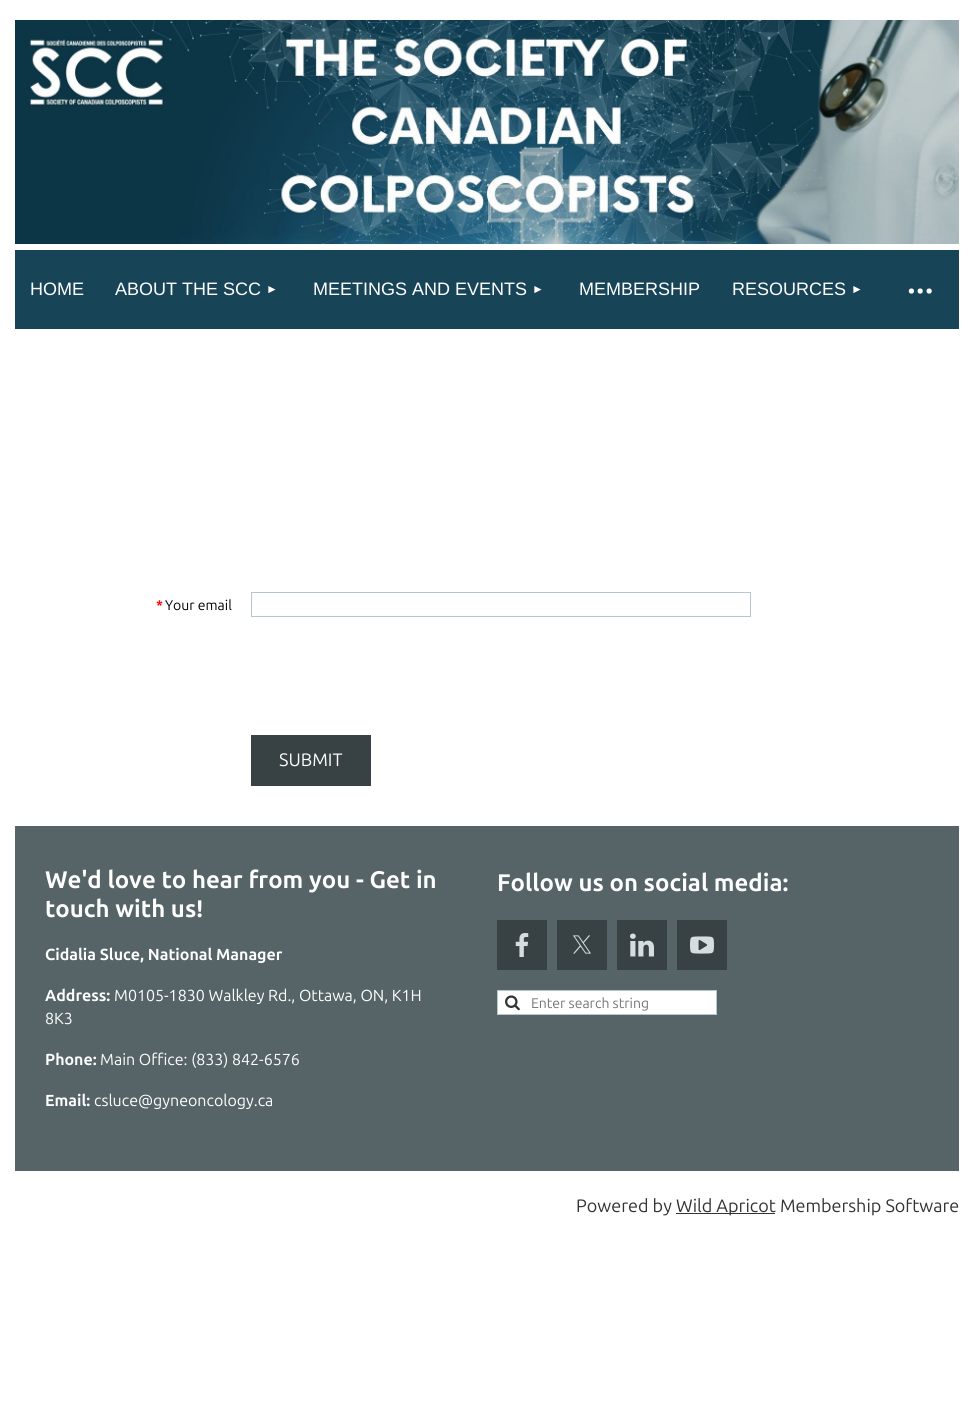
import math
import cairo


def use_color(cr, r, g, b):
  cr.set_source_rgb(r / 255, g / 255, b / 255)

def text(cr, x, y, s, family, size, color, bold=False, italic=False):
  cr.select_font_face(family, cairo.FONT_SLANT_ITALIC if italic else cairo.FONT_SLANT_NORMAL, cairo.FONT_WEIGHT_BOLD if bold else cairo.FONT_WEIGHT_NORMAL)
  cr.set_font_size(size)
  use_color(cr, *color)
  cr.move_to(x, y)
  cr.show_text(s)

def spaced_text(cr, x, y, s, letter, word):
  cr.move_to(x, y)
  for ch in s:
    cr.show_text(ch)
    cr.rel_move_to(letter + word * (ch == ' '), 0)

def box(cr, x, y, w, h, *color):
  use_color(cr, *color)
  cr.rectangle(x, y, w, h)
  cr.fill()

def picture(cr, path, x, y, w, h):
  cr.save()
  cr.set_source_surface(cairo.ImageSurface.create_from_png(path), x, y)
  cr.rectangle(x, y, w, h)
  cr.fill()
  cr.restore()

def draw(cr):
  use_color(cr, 255, 255, 255)
  cr.paint()
  picture(cr, "img_01.png", 15, 20, 944, 224)
  box(cr, 15, 250, 944, 79, 24, 68, 88)
  cr.rectangle(251.5, 592.5, 499, 24)
  use_color(cr, 184, 198, 205)
  cr.set_line_width(1)
  cr.stroke()
  box(cr, 251, 735, 120, 51, 56, 66, 68)
  box(cr, 15, 826, 944, 345, 86, 100, 103)
  box(cr, 497, 920, 50, 50, 56, 66, 68)
  picture(cr, "img_02.png", 515, 933, 14, 24)
  box(cr, 557, 920, 50, 50, 56, 66, 68)
  picture(cr, "img_03.png", 573, 935, 18, 19)
  box(cr, 617, 920, 50, 50, 56, 66, 68)
  picture(cr, "img_04.png", 630, 933, 24, 24)
  box(cr, 677, 920, 50, 50, 56, 66, 68)
  picture(cr, "img_05.png", 690, 936, 24, 18)
  use_color(cr, 255, 255, 255)
  cr.rectangle(497.5, 990.5, 219, 24)
  cr.fill_preserve()
  use_color(cr, 184, 198, 205)
  cr.stroke()
  picture(cr, "img_06.png", 505, 995, 15, 16)
  box(cr, 676, 1213, 99, 1, 51, 51, 51)
  text(cr, 30, 295, "HOME", "Liberation Sans", 18, (255, 255, 255))
  text(cr, 115, 295, "ABOUT THE SCC", "Liberation Sans", 18, (255, 255, 255))
  text(cr, 266, 293, "►", "Liberation Sans", 12, (255, 255, 255))
  text(cr, 313, 295, "MEETINGS AND EVENTS", "Liberation Sans", 18, (255, 255, 255))
  text(cr, 532, 293, "►", "Liberation Sans", 12, (255, 255, 255))
  text(cr, 579, 295, "MEMBERSHIP", "Liberation Sans", 18, (255, 255, 255))
  text(cr, 732, 295, "RESOURCES", "Liberation Sans", 18, (255, 255, 255))
  text(cr, 851, 293, "►", "Liberation Sans", 12, (255, 255, 255))
  cr.select_font_face("Ubuntu")
  cr.set_font_size(44)
  spaced_text(cr, 906, 304, "···", -2, 0)
  text(cr, 156, 610, "*", "Ubuntu", 14, (255, 0, 0), bold=True)
  text(cr, 165, 610, "Your email", "Ubuntu", 14, (0, 0, 0))
  text(cr, 279, 766, "SUBMIT", "Ubuntu", 18, (255, 255, 255))
  text(cr, 45, 888, "We'd love to hear from you - Get in", "Ubuntu", 24, (255, 255, 255), bold=True)
  text(cr, 45, 917, "touch with us!", "Ubuntu", 24, (255, 255, 255), bold=True)
  text(cr, 45, 960, "Cidalia Sluce, National Manager", "Ubuntu", 16, (255, 255, 255), bold=True)
  text(cr, 45, 1001, "Address:", "Ubuntu", 16, (255, 255, 255), bold=True)
  text(cr, 114, 1001, "M0105-1830 Walkley Rd., Ottawa, ON, K1H", "Ubuntu", 16, (255, 255, 255))
  text(cr, 45, 1024, "8K3", "Ubuntu", 16, (255, 255, 255))
  text(cr, 45, 1065, "Phone:", "Ubuntu", 16, (255, 255, 255), bold=True)
  text(cr, 100, 1065, "Main Office: (833) 842-6576", "Ubuntu", 16, (255, 255, 255))
  text(cr, 45, 1106, "Email:", "Ubuntu", 16, (255, 255, 255), bold=True)
  text(cr, 94, 1106, "csluce@gyneoncology.ca", "Ubuntu", 16, (255, 255, 255))
  text(cr, 497, 891, "Follow us on social media:", "Ubuntu", 24, (255, 255, 255), bold=True)
  text(cr, 531, 1008, "Enter search string", "Ubuntu", 14, (117, 117, 117))
  text(cr, 576, 1212, "Powered by", "Ubuntu", 18, (51, 51, 51))
  text(cr, 676, 1212, "Wild Apricot Membership Software", "Ubuntu", 18, (51, 51, 51))


surface = cairo.ImageSurface(cairo.FORMAT_RGB24, 974, 1420)
cr = cairo.Context(surface)
options = cairo.FontOptions()
options.set_hint_metrics(cairo.HINT_METRICS_OFF)
options.set_hint_style(cairo.HINT_STYLE_NONE)
cr.set_font_options(options)
cr.set_miter_limit(4)
draw(cr)
surface.write_to_png("out.png")
